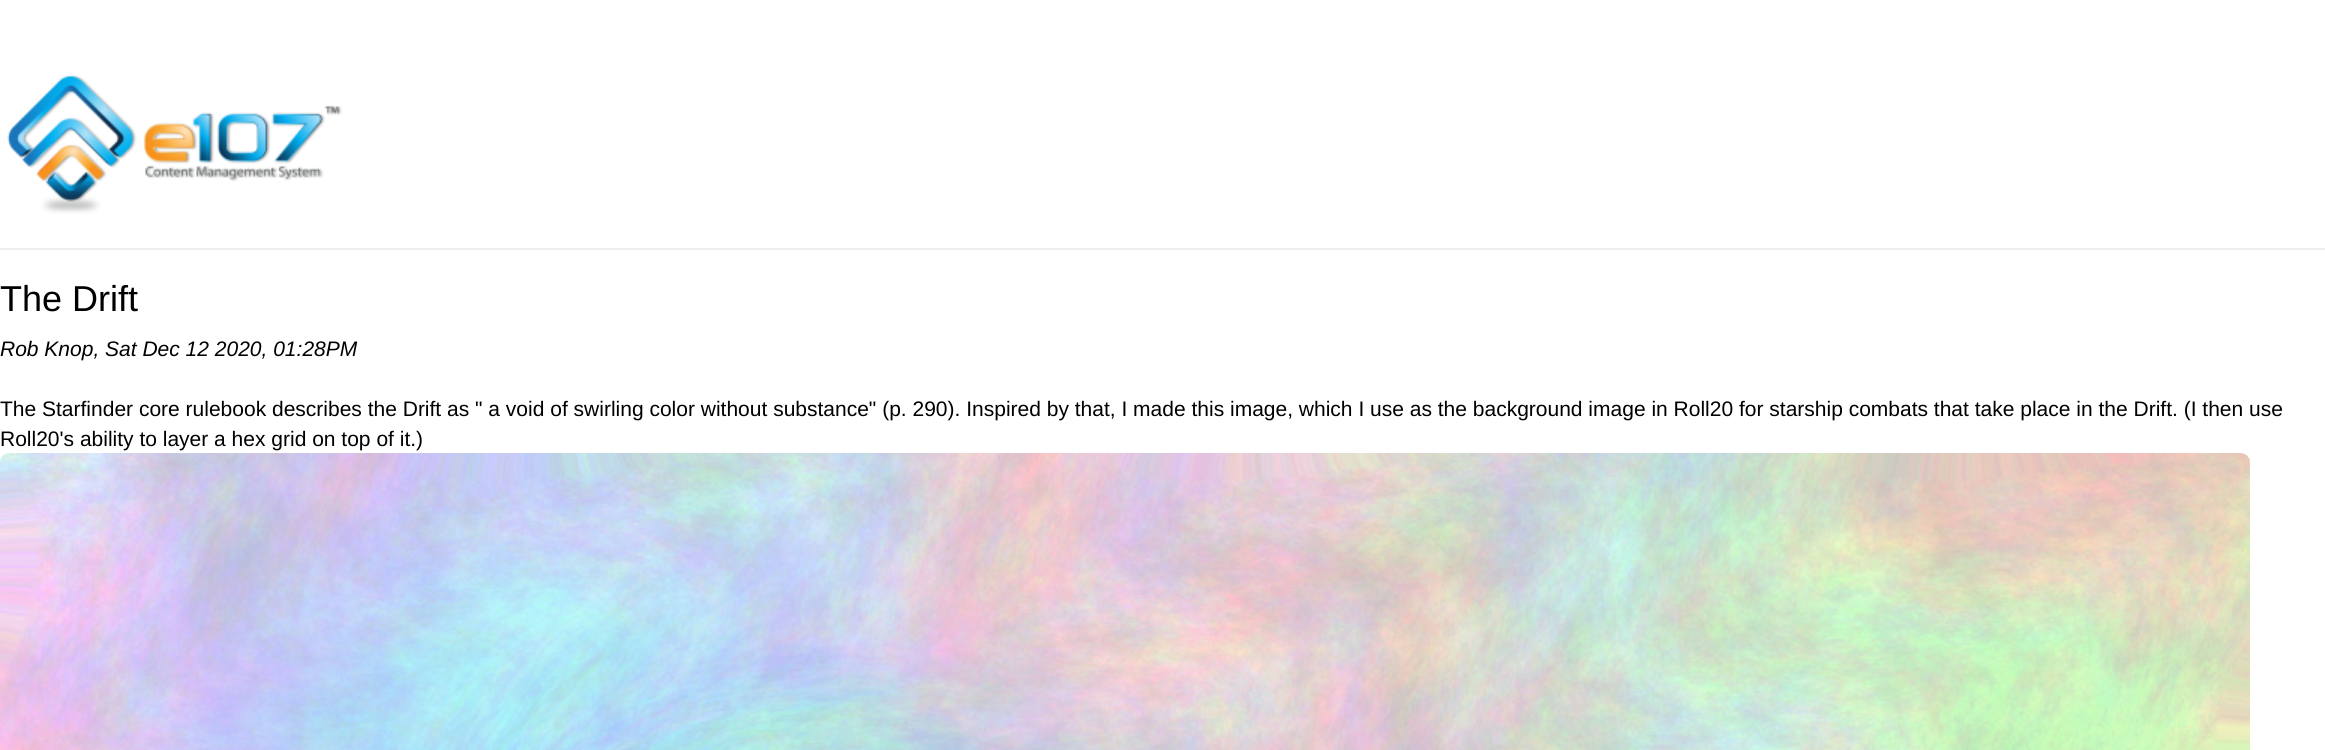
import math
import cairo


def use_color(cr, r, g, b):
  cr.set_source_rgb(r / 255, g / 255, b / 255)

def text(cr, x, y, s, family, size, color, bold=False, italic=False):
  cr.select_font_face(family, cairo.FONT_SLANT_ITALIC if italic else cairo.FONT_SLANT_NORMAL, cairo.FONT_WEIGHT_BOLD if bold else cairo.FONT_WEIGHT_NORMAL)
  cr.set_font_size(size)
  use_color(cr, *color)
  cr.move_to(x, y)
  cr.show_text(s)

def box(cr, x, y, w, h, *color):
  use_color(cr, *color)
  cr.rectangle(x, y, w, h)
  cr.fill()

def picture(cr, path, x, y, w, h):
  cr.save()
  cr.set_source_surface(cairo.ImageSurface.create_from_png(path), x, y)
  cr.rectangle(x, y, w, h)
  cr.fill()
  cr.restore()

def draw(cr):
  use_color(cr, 255, 255, 255)
  cr.paint()
  picture(cr, "img_01.png", 7, 75, 335, 139)
  box(cr, 0, 248, 2325, 2, 238, 238, 238)
  picture(cr, "img_02.png", 0, 453, 2250, 297)
  text(cr, 0, 311, "The Drift", "Liberation Sans", 36, (0, 0, 0))
  text(cr, 0, 356, "Rob Knop, Sat Dec 12 2020, 01:28PM", "Liberation Sans", 21, (0, 0, 0), italic=True)
  text(cr, 0, 416, "The Starfinder core rulebook describes the Drift as \" a void of swirling color without substance\" (p. 290). Inspired by that, I made this image, which I use as the background image in Roll20 for starship combats that take place in the Drift. (I then use", "Liberation Sans", 21, (0, 0, 0))
  text(cr, 0, 446, "Roll20's ability to layer a hex grid on top of it.)", "Liberation Sans", 21, (0, 0, 0))


surface = cairo.ImageSurface(cairo.FORMAT_RGB24, 2325, 750)
cr = cairo.Context(surface)
options = cairo.FontOptions()
options.set_hint_metrics(cairo.HINT_METRICS_OFF)
options.set_hint_style(cairo.HINT_STYLE_NONE)
cr.set_font_options(options)
cr.set_miter_limit(4)
draw(cr)
surface.write_to_png("out.png")
